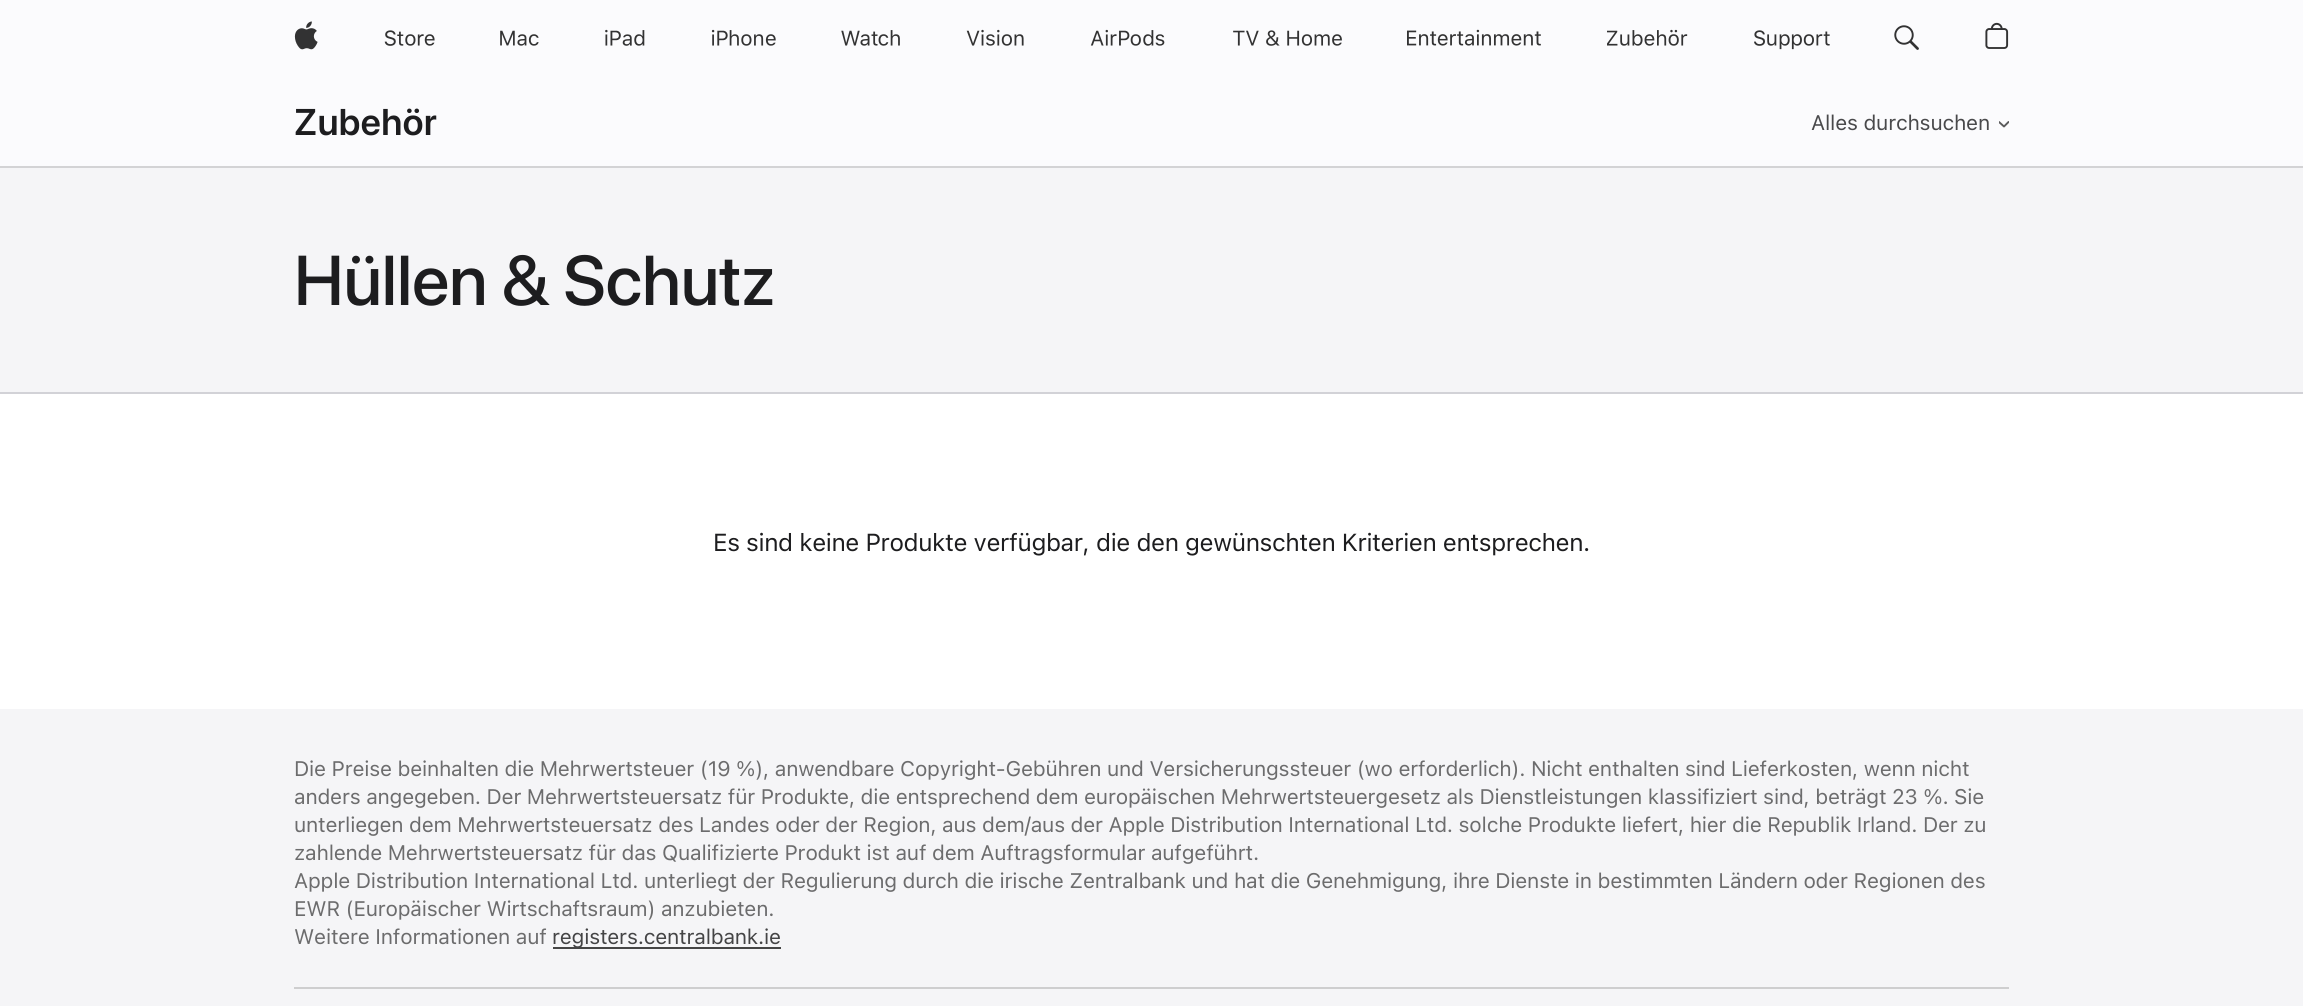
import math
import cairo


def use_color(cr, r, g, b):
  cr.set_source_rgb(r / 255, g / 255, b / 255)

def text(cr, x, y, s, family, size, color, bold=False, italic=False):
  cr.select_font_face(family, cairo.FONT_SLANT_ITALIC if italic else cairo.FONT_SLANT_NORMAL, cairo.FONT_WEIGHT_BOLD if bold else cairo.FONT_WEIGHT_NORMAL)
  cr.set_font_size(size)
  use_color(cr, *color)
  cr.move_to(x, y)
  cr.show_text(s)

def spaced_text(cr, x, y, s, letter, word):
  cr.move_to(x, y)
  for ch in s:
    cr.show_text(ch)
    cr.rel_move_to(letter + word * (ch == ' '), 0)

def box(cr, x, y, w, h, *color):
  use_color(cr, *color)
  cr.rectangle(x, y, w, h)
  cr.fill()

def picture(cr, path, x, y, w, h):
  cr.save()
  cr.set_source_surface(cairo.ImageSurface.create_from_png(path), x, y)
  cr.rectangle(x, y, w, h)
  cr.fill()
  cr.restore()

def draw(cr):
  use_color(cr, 255, 255, 255)
  cr.paint()
  box(cr, 0, 0, 2303, 166, 251, 251, 253)
  picture(cr, "img_01.png", 294, 21, 24, 29)
  picture(cr, "img_02.png", 384, 30, 51, 16)
  picture(cr, "img_03.png", 500, 30, 39, 16)
  picture(cr, "img_04.png", 605, 29, 40, 17)
  picture(cr, "img_05.png", 711, 29, 65, 17)
  picture(cr, "img_06.png", 841, 30, 59, 16)
  picture(cr, "img_07.png", 966, 29, 58, 17)
  picture(cr, "img_08.png", 1090, 29, 75, 17)
  picture(cr, "img_09.png", 1233, 30, 109, 16)
  picture(cr, "img_10.png", 1407, 29, 134, 17)
  picture(cr, "img_11.png", 1607, 29, 81, 17)
  picture(cr, "img_12.png", 1754, 30, 76, 20)
  picture(cr, "img_13.png", 1894, 25, 25, 25)
  picture(cr, "img_14.png", 1985, 22, 24, 27)
  box(cr, 0, 166, 2303, 2, 211, 211, 213)
  cr.save()
  cr.rectangle(1999, 116, 10, 12)
  cr.clip()
  cr.new_path()
  cr.move_to(2008.5, 122)
  cr.line_to(2004, 126.5)
  cr.line_to(1999, 122)
  use_color(cr, 90, 90, 91)
  cr.set_line_width(1.9)
  cr.set_line_cap(cairo.LINE_CAP_ROUND)
  cr.set_line_join(cairo.LINE_JOIN_ROUND)
  cr.stroke()
  cr.restore()
  box(cr, 0, 168, 2303, 224, 245, 245, 247)
  box(cr, 0, 392, 2303, 2, 210, 210, 215)
  box(cr, 0, 709, 2303, 297, 245, 245, 247)
  box(cr, 294, 987, 1715, 2, 206, 206, 207)
  box(cr, 553, 947, 228, 2, 69, 69, 69)
  cr.select_font_face("SF Pro Display SemiBold")
  cr.set_font_size(37)
  use_color(cr, 29, 29, 31)
  spaced_text(cr, 294, 135, "Zubehör", 0.5, 0)
  cr.select_font_face("SF Pro Text")
  cr.set_font_size(21)
  use_color(cr, 73, 73, 75)
  spaced_text(cr, 1811, 130, "Alles durchsuchen", -0.21, 0)
  text(cr, 294, 305, "Hüllen & Schutz", "SF Pro Display Medium", 70, (29, 29, 31))
  cr.select_font_face("SF Pro Text")
  cr.set_font_size(24.5)
  spaced_text(cr, 713, 551, "Es sind keine Produkte verfügbar, die den gewünschten Kriterien entsprechen.", -0.4, 0)
  cr.set_font_size(21)
  use_color(cr, 108, 108, 109)
  spaced_text(cr, 294, 776, "Die Preise beinhalten die Mehrwertsteuer (19 %), anwendbare Copyright-Gebühren und Versicherungssteuer (wo erforderlich). Nicht enthalten sind Lieferkosten, wenn nicht", -0.21, 0)
  spaced_text(cr, 294, 804, "anders angegeben. Der Mehrwertsteuersatz für Produkte, die entsprechend dem europäischen Mehrwertsteuergesetz als Dienstleistungen klassifiziert sind, beträgt 23 %. Sie", -0.21, 0)
  spaced_text(cr, 294, 832, "unterliegen dem Mehrwertsteuersatz des Landes oder der Region, aus dem/aus der Apple Distribution International Ltd. solche Produkte liefert, hier die Republik Irland. Der zu", -0.21, 0)
  spaced_text(cr, 294, 860, "zahlende Mehrwertsteuersatz für das Qualifizierte Produkt ist auf dem Auftragsformular aufgeführt.", -0.21, 0)
  spaced_text(cr, 294, 888, "Apple Distribution International Ltd. unterliegt der Regulierung durch die irische Zentralbank und hat die Genehmigung, ihre Dienste in bestimmten Ländern oder Regionen des", -0.21, 0)
  spaced_text(cr, 294, 916, "EWR (Europäischer Wirtschaftsraum) anzubieten.", -0.21, 0)
  spaced_text(cr, 294, 944, "Weitere Informationen auf", -0.21, 0)
  use_color(cr, 68, 68, 69)
  spaced_text(cr, 552, 944, "registers.centralbank.ie", -0.21, 0)


surface = cairo.ImageSurface(cairo.FORMAT_RGB24, 2303, 1006)
cr = cairo.Context(surface)
options = cairo.FontOptions()
options.set_hint_metrics(cairo.HINT_METRICS_OFF)
options.set_hint_style(cairo.HINT_STYLE_NONE)
cr.set_font_options(options)
cr.set_miter_limit(4)
draw(cr)
surface.write_to_png("out.png")
